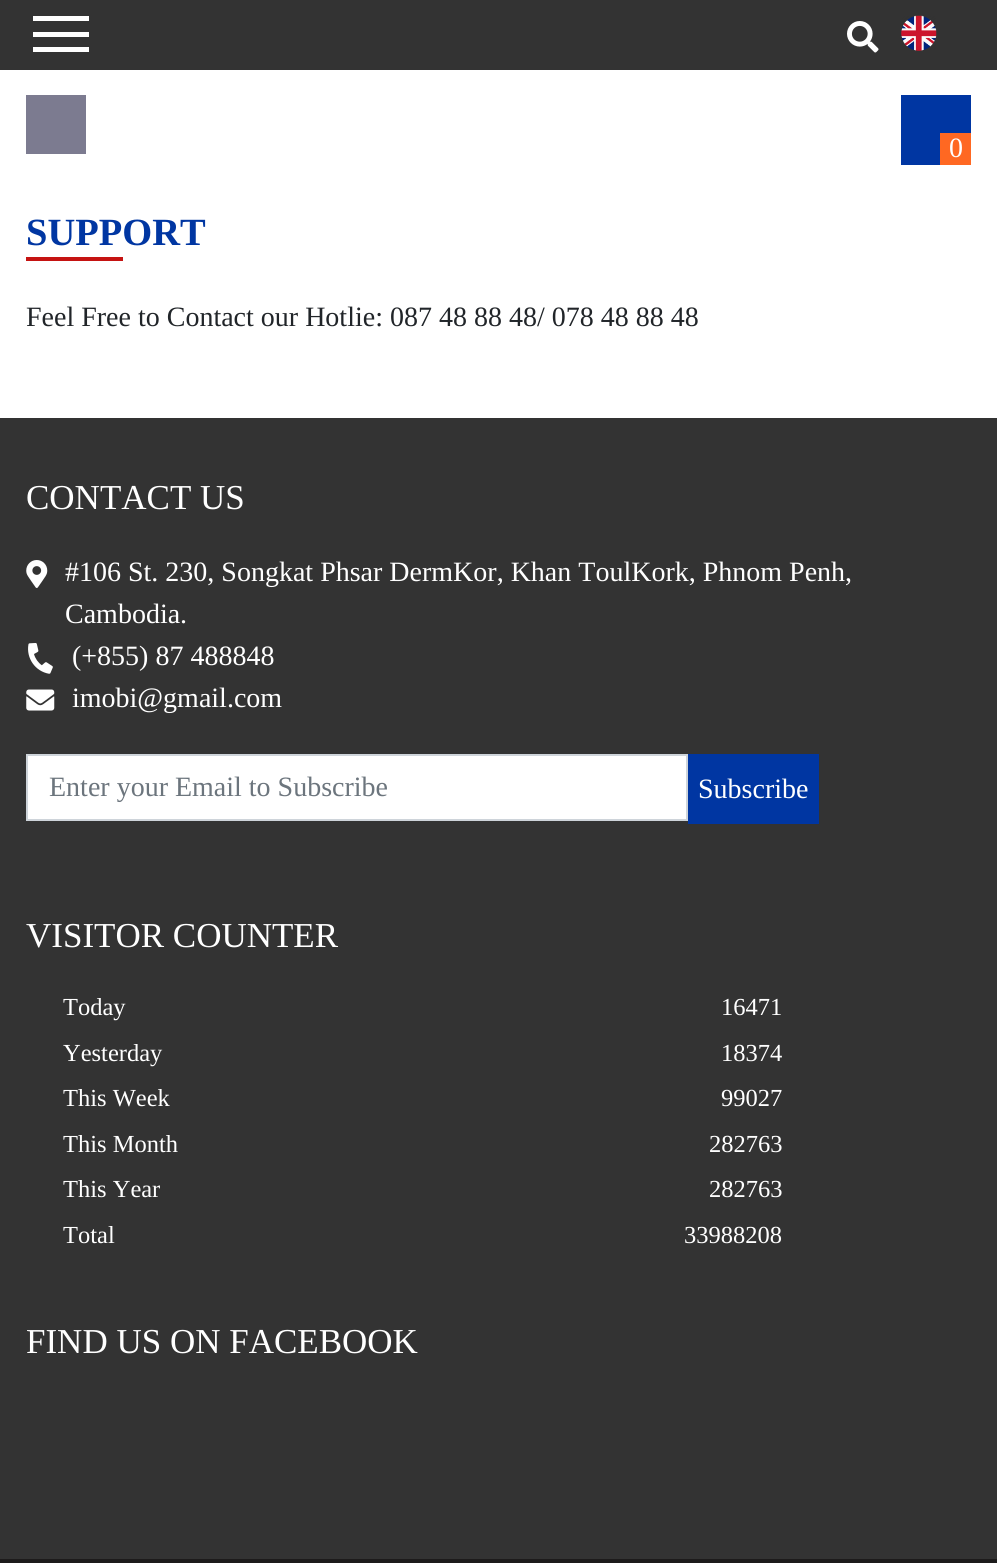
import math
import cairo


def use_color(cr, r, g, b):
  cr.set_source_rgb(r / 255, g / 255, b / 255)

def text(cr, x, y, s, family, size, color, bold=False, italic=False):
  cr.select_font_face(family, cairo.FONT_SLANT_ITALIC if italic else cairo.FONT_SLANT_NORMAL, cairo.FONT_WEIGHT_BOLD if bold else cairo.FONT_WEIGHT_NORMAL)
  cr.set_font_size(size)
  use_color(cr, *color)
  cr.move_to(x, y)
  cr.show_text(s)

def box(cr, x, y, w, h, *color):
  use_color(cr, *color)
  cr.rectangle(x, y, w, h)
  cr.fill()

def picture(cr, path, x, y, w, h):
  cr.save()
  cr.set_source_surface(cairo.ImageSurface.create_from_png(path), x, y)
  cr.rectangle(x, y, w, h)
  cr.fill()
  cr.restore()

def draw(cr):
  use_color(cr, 255, 255, 255)
  cr.paint()
  box(cr, 0, 0, 997, 70, 51, 51, 51)
  box(cr, 33, 16, 56, 5, 255, 255, 255)
  box(cr, 33, 32, 56, 5, 255, 255, 255)
  box(cr, 33, 47, 56, 5, 255, 255, 255)
  picture(cr, "img_01.png", 847, 21, 32, 32)
  picture(cr, "img_02.png", 901, 15, 36, 36)
  box(cr, 26, 95, 60, 59, 124, 123, 144)
  box(cr, 901, 95, 70, 70, 0, 54, 162)
  box(cr, 940, 133, 31, 32, 255, 104, 34)
  box(cr, 26, 257, 97, 4, 197, 19, 18)
  box(cr, 0, 418, 997, 1141, 51, 51, 51)
  picture(cr, "img_03.png", 26, 560, 22, 28)
  picture(cr, "img_04.png", 28, 643, 25, 31)
  picture(cr, "img_05.png", 26, 689, 29, 22)
  use_color(cr, 255, 255, 255)
  cr.rectangle(27, 755, 660, 65)
  cr.fill_preserve()
  use_color(cr, 206, 212, 218)
  cr.stroke()
  box(cr, 688, 754, 131, 70, 0, 54, 162)
  box(cr, 0, 1559, 997, 4, 29, 27, 27)
  text(cr, 949, 157, "0", "Liberation Serif", 28, (255, 255, 255))
  text(cr, 26, 245, "SUPPORT", "Liberation Serif", 38.5, (0, 54, 162), bold=True)
  text(cr, 26, 326, "Feel Free to Contact our Hotlie: 087 48 88 48/ 078 48 88 48", "Liberation Serif", 28, (33, 37, 41))
  text(cr, 26, 509, "CONTACT US", "Liberation Serif", 35, (255, 255, 255))
  text(cr, 65, 581, "#106 St. 230, Songkat Phsar DermKor, Khan ToulKork, Phnom Penh,", "Liberation Serif", 28, (255, 255, 255))
  text(cr, 65, 623, "Cambodia.", "Liberation Serif", 28, (255, 255, 255))
  text(cr, 72, 665, "(+855) 87 488848", "Liberation Serif", 28, (255, 255, 255))
  text(cr, 72, 707, "imobi@gmail.com", "Liberation Serif", 28, (255, 255, 255))
  text(cr, 49, 796, "Enter your Email to Subscribe", "Liberation Serif", 28, (108, 117, 125))
  text(cr, 698, 798, "Subscribe", "Liberation Serif", 28, (255, 255, 255))
  text(cr, 26, 947, "VISITOR COUNTER", "Liberation Serif", 35, (255, 255, 255))
  text(cr, 63, 1015, "Today", "Liberation Serif", 24.5, (255, 255, 255))
  text(cr, 721, 1015, "16471", "Liberation Serif", 24.5, (255, 255, 255))
  text(cr, 63, 1061, "Yesterday", "Liberation Serif", 24.5, (255, 255, 255))
  text(cr, 721, 1061, "18374", "Liberation Serif", 24.5, (255, 255, 255))
  text(cr, 63, 1106, "This Week", "Liberation Serif", 24.5, (255, 255, 255))
  text(cr, 721, 1106, "99027", "Liberation Serif", 24.5, (255, 255, 255))
  text(cr, 63, 1152, "This Month", "Liberation Serif", 24.5, (255, 255, 255))
  text(cr, 709, 1152, "282763", "Liberation Serif", 24.5, (255, 255, 255))
  text(cr, 63, 1197, "This Year", "Liberation Serif", 24.5, (255, 255, 255))
  text(cr, 709, 1197, "282763", "Liberation Serif", 24.5, (255, 255, 255))
  text(cr, 63, 1243, "Total", "Liberation Serif", 24.5, (255, 255, 255))
  text(cr, 684, 1243, "33988208", "Liberation Serif", 24.5, (255, 255, 255))
  text(cr, 26, 1353, "FIND US ON FACEBOOK", "Liberation Serif", 35, (255, 255, 255))


surface = cairo.ImageSurface(cairo.FORMAT_RGB24, 997, 1563)
cr = cairo.Context(surface)
options = cairo.FontOptions()
options.set_hint_metrics(cairo.HINT_METRICS_OFF)
options.set_hint_style(cairo.HINT_STYLE_NONE)
cr.set_font_options(options)
cr.set_miter_limit(4)
draw(cr)
surface.write_to_png("out.png")
